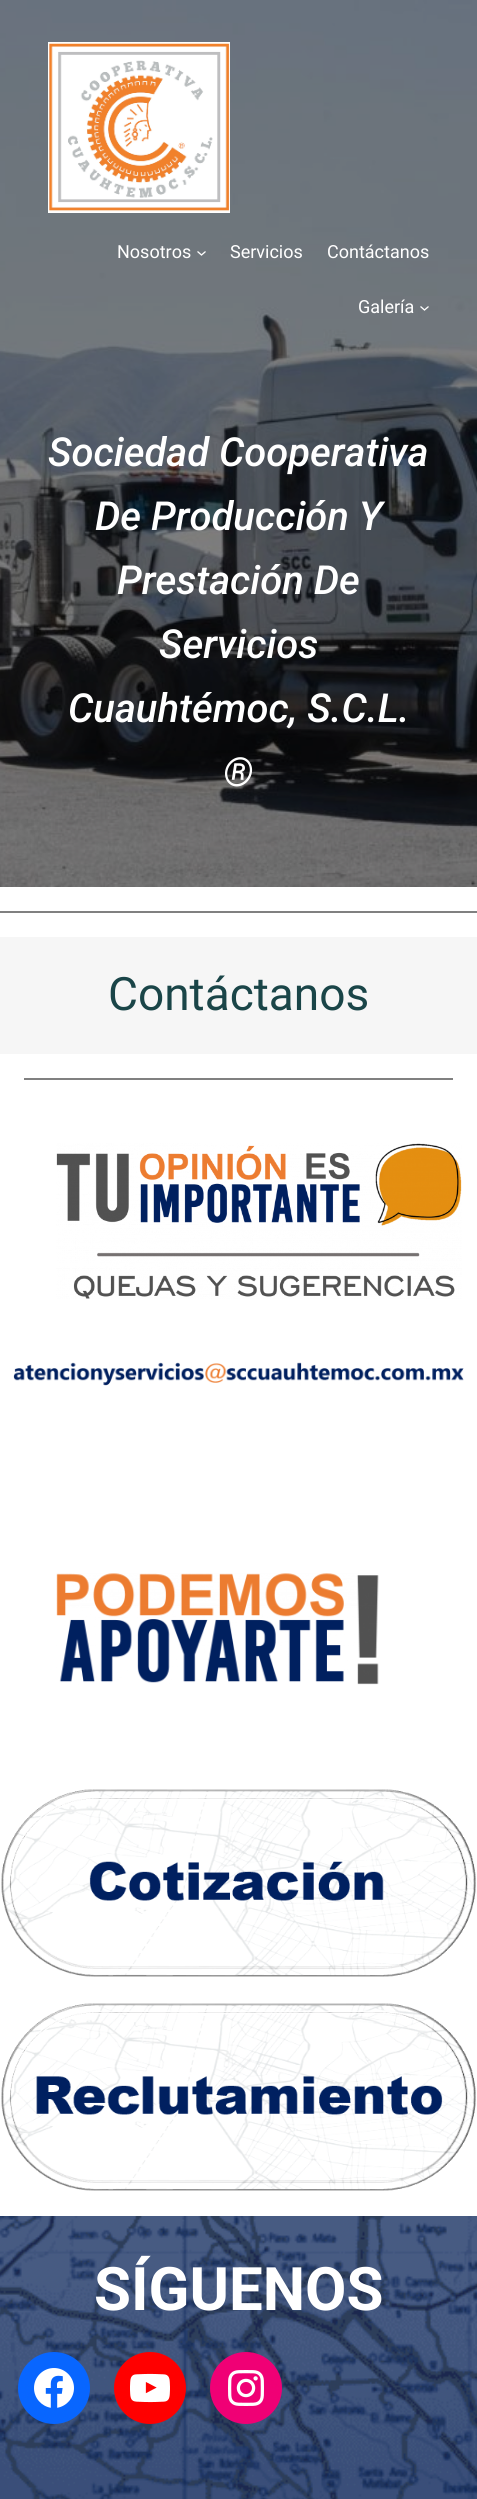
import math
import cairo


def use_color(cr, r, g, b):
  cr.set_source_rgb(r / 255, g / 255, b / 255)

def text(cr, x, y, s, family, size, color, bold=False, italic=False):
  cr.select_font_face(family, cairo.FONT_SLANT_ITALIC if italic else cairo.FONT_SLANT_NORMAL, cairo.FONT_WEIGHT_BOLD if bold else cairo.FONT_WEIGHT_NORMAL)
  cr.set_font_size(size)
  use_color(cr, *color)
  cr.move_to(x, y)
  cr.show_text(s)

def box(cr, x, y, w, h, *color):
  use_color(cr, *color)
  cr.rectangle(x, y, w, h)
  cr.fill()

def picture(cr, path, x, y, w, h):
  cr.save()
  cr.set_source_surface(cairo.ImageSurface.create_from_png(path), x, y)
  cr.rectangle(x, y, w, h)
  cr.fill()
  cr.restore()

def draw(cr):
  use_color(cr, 255, 255, 255)
  cr.paint()
  picture(cr, "img_01.png", 0, 0, 477, 887)
  picture(cr, "img_02.png", 48, 42, 182, 171)
  cr.new_path()
  cr.move_to(197.5, 251.5)
  cr.line_to(201.5, 255)
  cr.line_to(205.5, 251.5)
  use_color(cr, 255, 255, 255)
  cr.set_line_width(1.3)
  cr.stroke()
  cr.new_path()
  cr.move_to(420.5, 306.5)
  cr.line_to(424.5, 310)
  cr.line_to(428.5, 306.5)
  cr.stroke()
  box(cr, 0, 911, 477, 2, 128, 128, 128)
  box(cr, 0, 937, 477, 117, 246, 246, 246)
  box(cr, 24, 1078, 429, 2, 128, 128, 128)
  picture(cr, "img_03.png", 56, 1143, 406, 156)
  picture(cr, "img_04.png", 13, 1362, 451, 24)
  picture(cr, "img_05.png", 56, 1573, 323, 112)
  picture(cr, "img_06.png", 1, 1789, 475, 188)
  picture(cr, "img_07.png", 1, 2003, 475, 188)
  picture(cr, "img_08.png", 0, 2216, 477, 283)
  use_color(cr, 8, 102, 255)
  cr.arc(54, 2388, 36, 0, 2 * math.pi)
  cr.fill()
  picture(cr, "img_09.png", 34, 2368, 40, 40)
  use_color(cr, 255, 0, 0)
  cr.arc(150, 2388, 36, 0, 2 * math.pi)
  cr.fill()
  picture(cr, "img_10.png", 130, 2373, 40, 30)
  use_color(cr, 240, 0, 117)
  cr.arc(246, 2388, 36, 0, 2 * math.pi)
  cr.fill()
  picture(cr, "img_11.png", 228, 2370, 36, 36)
  text(cr, 117, 258, "Nosotros", "Roboto", 18, (255, 255, 255))
  text(cr, 230, 258, "Servicios", "Roboto", 18, (255, 255, 255))
  text(cr, 327, 258, "Contáctanos", "Roboto", 18, (255, 255, 255))
  text(cr, 358, 313, "Galería", "Roboto", 18, (255, 255, 255))
  text(cr, 48, 466, "Sociedad Cooperativa", "Roboto Medium", 40, (255, 255, 255), italic=True)
  text(cr, 95, 530, "De Producción Y", "Roboto Medium", 40, (255, 255, 255), italic=True)
  text(cr, 117, 594, "Prestación De", "Roboto Medium", 40, (255, 255, 255), italic=True)
  text(cr, 159, 658, "Servicios", "Roboto Medium", 40, (255, 255, 255), italic=True)
  text(cr, 68, 722, "Cuauhtémoc, S.C.L.", "Roboto Medium", 40, (255, 255, 255), italic=True)
  text(cr, 223, 786, "®", "Roboto Medium", 40, (255, 255, 255), italic=True)
  text(cr, 108, 1010, "Contáctanos", "Roboto", 46, (26, 69, 72))
  text(cr, 94, 2310, "SÍGUENOS", "Roboto", 60, (255, 255, 255), bold=True)


surface = cairo.ImageSurface(cairo.FORMAT_RGB24, 477, 2499)
cr = cairo.Context(surface)
options = cairo.FontOptions()
options.set_hint_metrics(cairo.HINT_METRICS_OFF)
options.set_hint_style(cairo.HINT_STYLE_NONE)
cr.set_font_options(options)
cr.set_miter_limit(4)
draw(cr)
surface.write_to_png("out.png")
